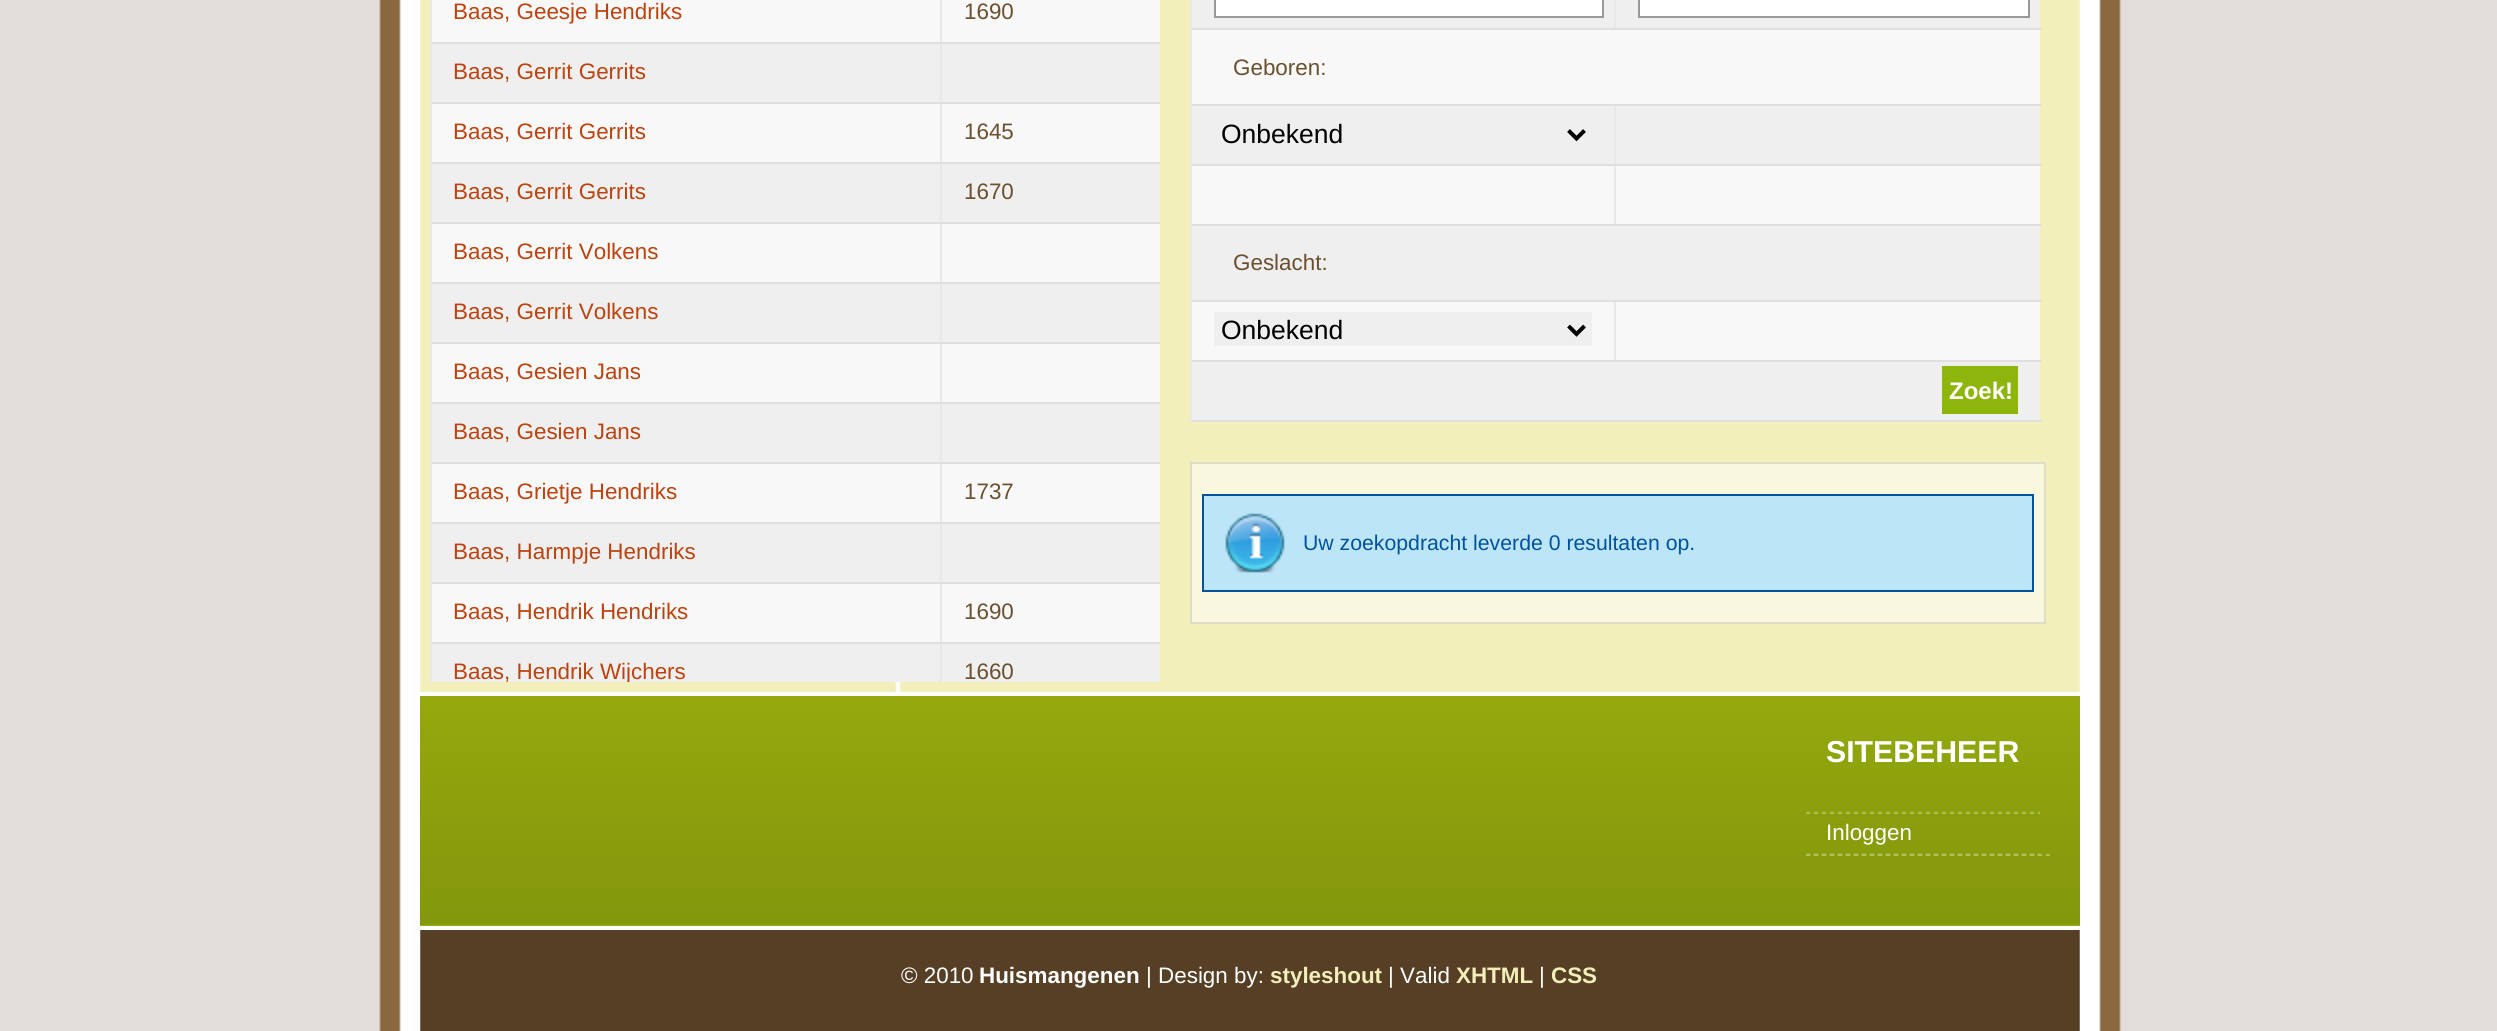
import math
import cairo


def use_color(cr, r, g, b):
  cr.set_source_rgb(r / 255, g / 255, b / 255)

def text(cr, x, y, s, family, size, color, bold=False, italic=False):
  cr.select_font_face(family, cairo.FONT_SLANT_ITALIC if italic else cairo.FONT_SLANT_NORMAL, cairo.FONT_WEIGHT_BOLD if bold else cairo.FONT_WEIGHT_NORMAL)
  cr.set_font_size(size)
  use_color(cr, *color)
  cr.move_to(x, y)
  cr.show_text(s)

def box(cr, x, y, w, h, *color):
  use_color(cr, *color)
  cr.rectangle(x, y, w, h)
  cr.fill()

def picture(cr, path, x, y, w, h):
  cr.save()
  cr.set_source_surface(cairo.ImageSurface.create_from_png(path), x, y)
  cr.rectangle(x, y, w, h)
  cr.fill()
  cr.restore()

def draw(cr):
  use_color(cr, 226, 221, 217)
  cr.paint()
  picture(cr, "img_01.png", 379, 0, 1742, 1031)
  box(cr, 2080, 0, 1, 1031, 255, 255, 255)
  box(cr, 419, 0, 1, 1031, 255, 255, 255)
  picture(cr, "img_02.png", 420, 0, 1660, 692)
  box(cr, 420, 692, 1660, 4, 255, 255, 255)
  box(cr, 432, 0, 728, 42, 248, 248, 248)
  box(cr, 432, 44, 728, 58, 239, 239, 239)
  box(cr, 432, 104, 728, 58, 248, 248, 248)
  box(cr, 432, 164, 728, 58, 239, 239, 239)
  box(cr, 432, 224, 728, 58, 248, 248, 248)
  box(cr, 432, 284, 728, 58, 239, 239, 239)
  box(cr, 432, 344, 728, 58, 248, 248, 248)
  box(cr, 432, 404, 728, 58, 239, 239, 239)
  box(cr, 432, 464, 728, 58, 248, 248, 248)
  box(cr, 432, 524, 728, 58, 239, 239, 239)
  box(cr, 432, 584, 728, 58, 248, 248, 248)
  box(cr, 432, 644, 728, 38, 239, 239, 239)
  box(cr, 940, 642, 2, 40, 232, 232, 232)
  box(cr, 940, 642, 220, 2, 223, 223, 223)
  box(cr, 940, 582, 2, 62, 232, 232, 232)
  box(cr, 940, 582, 220, 2, 223, 223, 223)
  box(cr, 940, 522, 2, 62, 232, 232, 232)
  box(cr, 940, 522, 220, 2, 223, 223, 223)
  box(cr, 940, 462, 2, 62, 232, 232, 232)
  box(cr, 940, 462, 220, 2, 223, 223, 223)
  box(cr, 940, 402, 2, 62, 232, 232, 232)
  box(cr, 940, 402, 220, 2, 223, 223, 223)
  box(cr, 940, 342, 2, 62, 232, 232, 232)
  box(cr, 940, 342, 220, 2, 223, 223, 223)
  box(cr, 940, 282, 2, 62, 232, 232, 232)
  box(cr, 940, 282, 220, 2, 223, 223, 223)
  box(cr, 940, 222, 2, 62, 232, 232, 232)
  box(cr, 940, 222, 220, 2, 223, 223, 223)
  box(cr, 940, 162, 2, 62, 232, 232, 232)
  box(cr, 940, 162, 220, 2, 223, 223, 223)
  box(cr, 940, 102, 2, 62, 232, 232, 232)
  box(cr, 940, 102, 220, 2, 223, 223, 223)
  box(cr, 940, 42, 2, 62, 232, 232, 232)
  box(cr, 940, 42, 220, 2, 223, 223, 223)
  box(cr, 940, 0, 2, 44, 232, 232, 232)
  box(cr, 430, 642, 2, 40, 232, 232, 232)
  box(cr, 430, 642, 512, 2, 223, 223, 223)
  box(cr, 430, 582, 2, 62, 232, 232, 232)
  box(cr, 430, 582, 512, 2, 223, 223, 223)
  box(cr, 430, 522, 2, 62, 232, 232, 232)
  box(cr, 430, 522, 512, 2, 223, 223, 223)
  box(cr, 430, 462, 2, 62, 232, 232, 232)
  box(cr, 430, 462, 512, 2, 223, 223, 223)
  box(cr, 430, 402, 2, 62, 232, 232, 232)
  box(cr, 430, 402, 512, 2, 223, 223, 223)
  box(cr, 430, 342, 2, 62, 232, 232, 232)
  box(cr, 430, 342, 512, 2, 223, 223, 223)
  box(cr, 430, 282, 2, 62, 232, 232, 232)
  box(cr, 430, 282, 512, 2, 223, 223, 223)
  box(cr, 430, 222, 2, 62, 232, 232, 232)
  box(cr, 430, 222, 512, 2, 223, 223, 223)
  box(cr, 430, 162, 2, 62, 232, 232, 232)
  box(cr, 430, 162, 512, 2, 223, 223, 223)
  box(cr, 430, 102, 2, 62, 232, 232, 232)
  box(cr, 430, 102, 512, 2, 223, 223, 223)
  box(cr, 430, 42, 2, 62, 232, 232, 232)
  box(cr, 430, 42, 512, 2, 223, 223, 223)
  box(cr, 430, 0, 2, 44, 232, 232, 232)
  box(cr, 1192, 0, 848, 28, 239, 239, 239)
  box(cr, 1614, 28, 428, 2, 223, 223, 223)
  box(cr, 1614, 0, 2, 30, 232, 232, 232)
  box(cr, 1192, 166, 848, 58, 248, 248, 248)
  box(cr, 1614, 224, 428, 2, 223, 223, 223)
  box(cr, 1614, 164, 2, 62, 232, 232, 232)
  box(cr, 1614, 164, 428, 2, 223, 223, 223)
  box(cr, 1192, 106, 848, 58, 239, 239, 239)
  box(cr, 1614, 104, 2, 62, 232, 232, 232)
  box(cr, 1614, 360, 428, 2, 223, 223, 223)
  box(cr, 1192, 302, 848, 58, 248, 248, 248)
  box(cr, 1614, 300, 2, 62, 232, 232, 232)
  box(cr, 1190, 420, 852, 2, 223, 223, 223)
  box(cr, 1190, 360, 2, 62, 232, 232, 232)
  box(cr, 1190, 360, 426, 2, 223, 223, 223)
  box(cr, 1190, 300, 2, 62, 232, 232, 232)
  box(cr, 1190, 300, 852, 2, 223, 223, 223)
  box(cr, 1190, 224, 2, 78, 232, 232, 232)
  box(cr, 1190, 224, 426, 2, 223, 223, 223)
  box(cr, 1190, 164, 2, 62, 232, 232, 232)
  box(cr, 1190, 164, 426, 2, 223, 223, 223)
  box(cr, 1190, 104, 2, 62, 232, 232, 232)
  box(cr, 1190, 104, 852, 2, 223, 223, 223)
  box(cr, 1190, 28, 2, 78, 232, 232, 232)
  box(cr, 1190, 28, 426, 2, 223, 223, 223)
  box(cr, 1190, 0, 2, 30, 232, 232, 232)
  use_color(cr, 255, 255, 255)
  cr.rectangle(1215, -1, 388, 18)
  cr.fill_preserve()
  use_color(cr, 153, 153, 153)
  cr.stroke()
  use_color(cr, 255, 255, 255)
  cr.rectangle(1639, -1, 390, 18)
  cr.fill_preserve()
  use_color(cr, 153, 153, 153)
  cr.stroke()
  box(cr, 1192, 30, 848, 74, 248, 248, 248)
  cr.new_path()
  cr.move_to(1568.5, 130.5)
  cr.line_to(1576.5, 138.5)
  cr.line_to(1584.5, 130.5)
  use_color(cr, 0, 0, 0)
  cr.set_line_width(4)
  cr.stroke()
  box(cr, 1192, 226, 848, 74, 239, 239, 239)
  box(cr, 1214, 312, 378, 34, 239, 239, 239)
  cr.new_path()
  cr.move_to(1568.5, 326)
  cr.line_to(1576.5, 334)
  cr.line_to(1584.5, 326)
  use_color(cr, 0, 0, 0)
  cr.stroke()
  box(cr, 1192, 362, 848, 58, 239, 239, 239)
  box(cr, 1942, 366, 76, 48, 142, 181, 12)
  use_color(cr, 249, 247, 221)
  cr.rectangle(1191, 463, 854, 160)
  cr.fill_preserve()
  use_color(cr, 224, 219, 201)
  cr.set_line_width(2)
  cr.stroke()
  box(cr, 1204, 496, 828, 94, 189, 229, 248)
  picture(cr, "img_03.png", 1225, 513, 60, 60)
  cr.rectangle(1203, 495, 830, 96)
  use_color(cr, 0, 82, 155)
  cr.stroke()
  picture(cr, "img_04.png", 420, 696, 1660, 230)
  box(cr, 420, 926, 1660, 4, 255, 255, 255)
  picture(cr, "img_05.png", 1806, 811, 234, 3)
  picture(cr, "img_06.png", 1806, 853, 234, 3)
  picture(cr, "img_07.png", 1806, 853, 244, 3)
  text(cr, 453, 19, "Baas, Geesje Hendriks", "Liberation Sans", 22.4, (190, 66, 13))
  text(cr, 964, 19, "1690", "Liberation Sans", 22.4, (107, 79, 46))
  text(cr, 453, 79, "Baas, Gerrit Gerrits", "Liberation Sans", 22.4, (190, 66, 13))
  text(cr, 453, 139, "Baas, Gerrit Gerrits", "Liberation Sans", 22.4, (190, 66, 13))
  text(cr, 964, 139, "1645", "Liberation Sans", 22.4, (107, 79, 46))
  text(cr, 453, 199, "Baas, Gerrit Gerrits", "Liberation Sans", 22.4, (190, 66, 13))
  text(cr, 964, 199, "1670", "Liberation Sans", 22.4, (107, 79, 46))
  text(cr, 453, 259, "Baas, Gerrit Volkens", "Liberation Sans", 22.4, (190, 66, 13))
  text(cr, 453, 319, "Baas, Gerrit Volkens", "Liberation Sans", 22.4, (190, 66, 13))
  text(cr, 453, 379, "Baas, Gesien Jans", "Liberation Sans", 22.4, (190, 66, 13))
  text(cr, 453, 439, "Baas, Gesien Jans", "Liberation Sans", 22.4, (190, 66, 13))
  text(cr, 453, 499, "Baas, Grietje Hendriks", "Liberation Sans", 22.4, (190, 66, 13))
  text(cr, 964, 499, "1737", "Liberation Sans", 22.4, (107, 79, 46))
  text(cr, 453, 559, "Baas, Harmpje Hendriks", "Liberation Sans", 22.4, (190, 66, 13))
  text(cr, 453, 619, "Baas, Hendrik Hendriks", "Liberation Sans", 22.4, (190, 66, 13))
  text(cr, 964, 619, "1690", "Liberation Sans", 22.4, (107, 79, 46))
  cr.save()
  cr.rectangle(430, 0, 730, 682)
  cr.clip()
  text(cr, 453, 679, "Baas, Hendrik Wijchers", "Liberation Sans", 22.4, (190, 66, 13))
  cr.restore()
  text(cr, 964, 679, "1660", "Liberation Sans", 22.4, (107, 79, 46))
  text(cr, 1233, 75, "Geboren:", "Liberation Sans", 22.4, (107, 79, 46))
  text(cr, 1221, 143, "Onbekend", "Liberation Sans", 26.5, (0, 0, 0))
  text(cr, 1233, 270, "Geslacht:", "Liberation Sans", 22.4, (107, 79, 46))
  text(cr, 1221, 339, "Onbekend", "Liberation Sans", 26.5, (0, 0, 0))
  text(cr, 1949, 399, "Zoek!", "Liberation Sans", 24, (255, 255, 255), bold=True)
  text(cr, 1303, 550, "Uw zoekopdracht leverde 0 resultaten op.", "Liberation Sans", 21.25, (0, 82, 155))
  text(cr, 1826, 762, "SITEBEHEER", "Liberation Sans", 30.25, (255, 255, 255), bold=True)
  text(cr, 1826, 840, "Inloggen", "Liberation Sans", 22.4, (255, 255, 255))
  text(cr, 901, 983, "© 2010", "Liberation Sans", 22.4, (255, 255, 255))
  text(cr, 979, 983, "Huismangenen", "Liberation Sans", 22.4, (255, 255, 255), bold=True)
  text(cr, 1146, 983, "| Design by:", "Liberation Sans", 22.4, (255, 255, 255))
  text(cr, 1270, 983, "styleshout", "Liberation Sans", 22.4, (243, 239, 186), bold=True)
  text(cr, 1388, 983, "| Valid", "Liberation Sans", 22.4, (255, 255, 255))
  text(cr, 1456, 983, "XHTML", "Liberation Sans", 22.4, (243, 239, 186), bold=True)
  text(cr, 1539, 983, "|", "Liberation Sans", 22.4, (255, 255, 255))
  text(cr, 1551, 983, "CSS", "Liberation Sans", 22.4, (243, 239, 186), bold=True)


surface = cairo.ImageSurface(cairo.FORMAT_RGB24, 2497, 1031)
cr = cairo.Context(surface)
options = cairo.FontOptions()
options.set_hint_metrics(cairo.HINT_METRICS_OFF)
options.set_hint_style(cairo.HINT_STYLE_NONE)
cr.set_font_options(options)
cr.set_miter_limit(4)
draw(cr)
surface.write_to_png("out.png")
